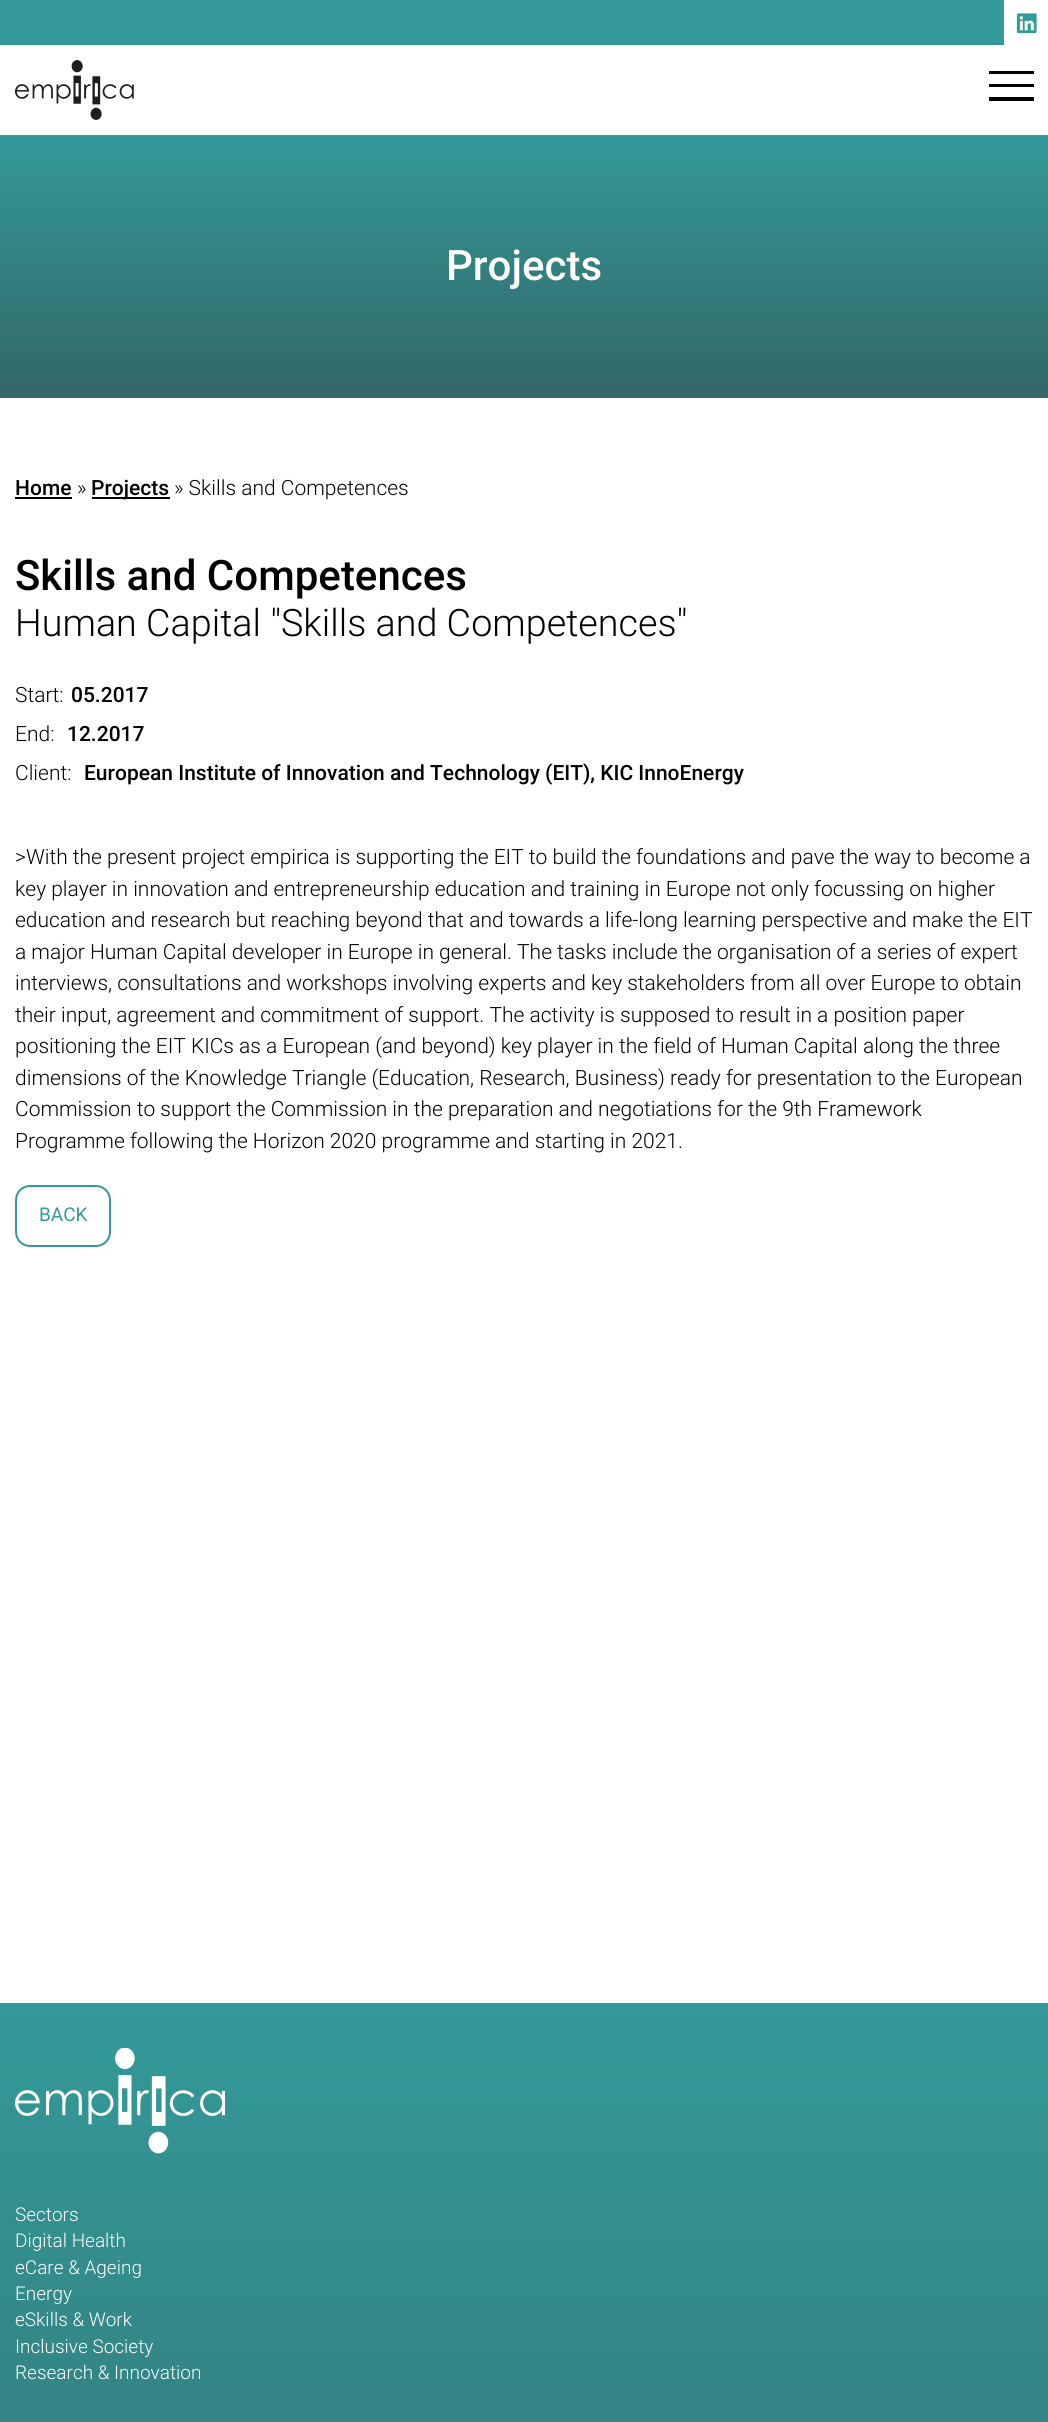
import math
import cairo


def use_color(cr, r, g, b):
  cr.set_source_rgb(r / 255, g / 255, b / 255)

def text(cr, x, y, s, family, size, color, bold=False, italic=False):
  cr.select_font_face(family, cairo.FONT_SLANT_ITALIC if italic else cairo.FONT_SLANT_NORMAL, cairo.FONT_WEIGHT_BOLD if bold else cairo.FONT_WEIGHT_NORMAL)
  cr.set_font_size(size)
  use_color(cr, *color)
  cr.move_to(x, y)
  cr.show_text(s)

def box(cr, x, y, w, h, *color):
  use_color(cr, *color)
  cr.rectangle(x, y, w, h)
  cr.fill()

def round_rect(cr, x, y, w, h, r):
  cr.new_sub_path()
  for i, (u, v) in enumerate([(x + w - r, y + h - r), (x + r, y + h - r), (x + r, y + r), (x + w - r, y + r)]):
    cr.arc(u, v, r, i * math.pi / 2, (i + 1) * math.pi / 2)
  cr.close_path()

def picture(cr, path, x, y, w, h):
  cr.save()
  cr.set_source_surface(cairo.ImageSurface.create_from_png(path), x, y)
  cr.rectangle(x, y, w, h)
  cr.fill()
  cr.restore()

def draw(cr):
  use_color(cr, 255, 255, 255)
  cr.paint()
  box(cr, 0, 0, 1004, 45, 51, 154, 153)
  picture(cr, "img_01.png", 1016, 13, 21, 21)
  picture(cr, "img_02.png", 15, 60, 119, 60)
  box(cr, 989, 84, 45, 3, 0, 0, 0)
  box(cr, 989, 71, 45, 3, 0, 0, 0)
  box(cr, 989, 97, 45, 4, 0, 0, 0)
  gradient = cairo.LinearGradient(524, 135, 524, 398)
  gradient.add_color_stop_rgba(0, 0.2, 0.604, 0.6, 1)
  gradient.add_color_stop_rgba(1, 0.2, 0.4, 0.404, 1)
  cr.set_source(gradient)
  cr.rectangle(0, 135, 1048, 263)
  cr.fill()
  box(cr, 15, 497, 57, 2, 0, 0, 0)
  box(cr, 92, 497, 78, 2, 0, 0, 0)
  round_rect(cr, 16, 1186, 94, 60, 14)
  use_color(cr, 51, 154, 153)
  cr.stroke()
  gradient = cairo.LinearGradient(524, 2003, 524, 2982)
  gradient.add_color_stop_rgba(0, 0.2, 0.604, 0.6, 1)
  gradient.add_color_stop_rgba(1, 0.2, 0.4, 0.404, 1)
  cr.set_source(gradient)
  cr.rectangle(0, 2003, 1048, 419)
  cr.fill()
  picture(cr, "img_03.png", 15, 2048, 210, 106)
  text(cr, 446, 280, "Projects", "Roboto Medium", 42, (255, 255, 255))
  text(cr, 15, 495, "Home", "Roboto Medium", 21, (0, 0, 0))
  text(cr, 77, 495, "»", "Roboto Light", 21, (0, 0, 0))
  text(cr, 91, 495, "Projects", "Roboto Medium", 21, (0, 0, 0))
  text(cr, 174, 495, "» Skills and Competences", "Roboto Light", 21, (0, 0, 0))
  text(cr, 15, 590, "Skills and Competences", "Roboto Medium", 42, (0, 0, 0))
  text(cr, 15, 636, "Human Capital \"Skills and Competences\"", "Roboto Light", 37.75, (0, 0, 0))
  text(cr, 15, 702, "Start:", "Roboto Light", 21, (0, 0, 0))
  text(cr, 71, 702, "05.2017", "Roboto Medium", 21, (0, 0, 0))
  text(cr, 15, 741, "End:", "Roboto Light", 21, (0, 0, 0))
  text(cr, 67, 741, "12.2017", "Roboto Medium", 21, (0, 0, 0))
  text(cr, 15, 780, "Client:", "Roboto Light", 21, (0, 0, 0))
  text(cr, 84, 780, "European Institute of Innovation and Technology (EIT), KIC InnoEnergy", "Roboto Medium", 21, (0, 0, 0))
  text(cr, 15, 864, ">With the present project empirica is supporting the EIT to build the foundations and pave the way to become a", "Roboto Light", 21, (0, 0, 0))
  text(cr, 15, 896, "key player in innovation and entrepreneurship education and training in Europe not only focussing on higher", "Roboto Light", 21, (0, 0, 0))
  text(cr, 15, 927, "education and research but reaching beyond that and towards a life-long learning perspective and make the EIT", "Roboto Light", 21, (0, 0, 0))
  text(cr, 15, 959, "a major Human Capital developer in Europe in general. The tasks include the organisation of a series of expert", "Roboto Light", 21, (0, 0, 0))
  text(cr, 15, 990, "interviews, consultations and workshops involving experts and key stakeholders from all over Europe to obtain", "Roboto Light", 21, (0, 0, 0))
  text(cr, 15, 1022, "their input, agreement and commitment of support. The activity is supposed to result in a position paper", "Roboto Light", 21, (0, 0, 0))
  text(cr, 15, 1053, "positioning the EIT KICs as a European (and beyond) key player in the field of Human Capital along the three", "Roboto Light", 21, (0, 0, 0))
  text(cr, 15, 1085, "dimensions of the Knowledge Triangle (Education, Research, Business) ready for presentation to the European", "Roboto Light", 21, (0, 0, 0))
  text(cr, 15, 1116, "Commission to support the Commission in the preparation and negotiations for the 9th Framework", "Roboto Light", 21, (0, 0, 0))
  text(cr, 15, 1148, "Programme following the Horizon 2020 programme and starting in 2021.", "Roboto Light", 21, (0, 0, 0))
  text(cr, 39, 1221, "BACK", "Roboto", 19, (51, 154, 153))
  text(cr, 15, 2221, "Sectors", "Roboto Light", 19, (255, 255, 255))
  text(cr, 15, 2247, "Digital Health", "Roboto Light", 19, (255, 255, 255))
  text(cr, 15, 2274, "eCare & Ageing", "Roboto Light", 19, (255, 255, 255))
  text(cr, 15, 2300, "Energy", "Roboto Light", 19, (255, 255, 255))
  text(cr, 15, 2326, "eSkills & Work", "Roboto Light", 19, (255, 255, 255))
  text(cr, 15, 2353, "Inclusive Society", "Roboto Light", 19, (255, 255, 255))
  text(cr, 15, 2379, "Research & Innovation", "Roboto Light", 19, (255, 255, 255))


surface = cairo.ImageSurface(cairo.FORMAT_RGB24, 1048, 2422)
cr = cairo.Context(surface)
options = cairo.FontOptions()
options.set_hint_metrics(cairo.HINT_METRICS_OFF)
options.set_hint_style(cairo.HINT_STYLE_NONE)
cr.set_font_options(options)
cr.set_miter_limit(4)
draw(cr)
surface.write_to_png("out.png")
